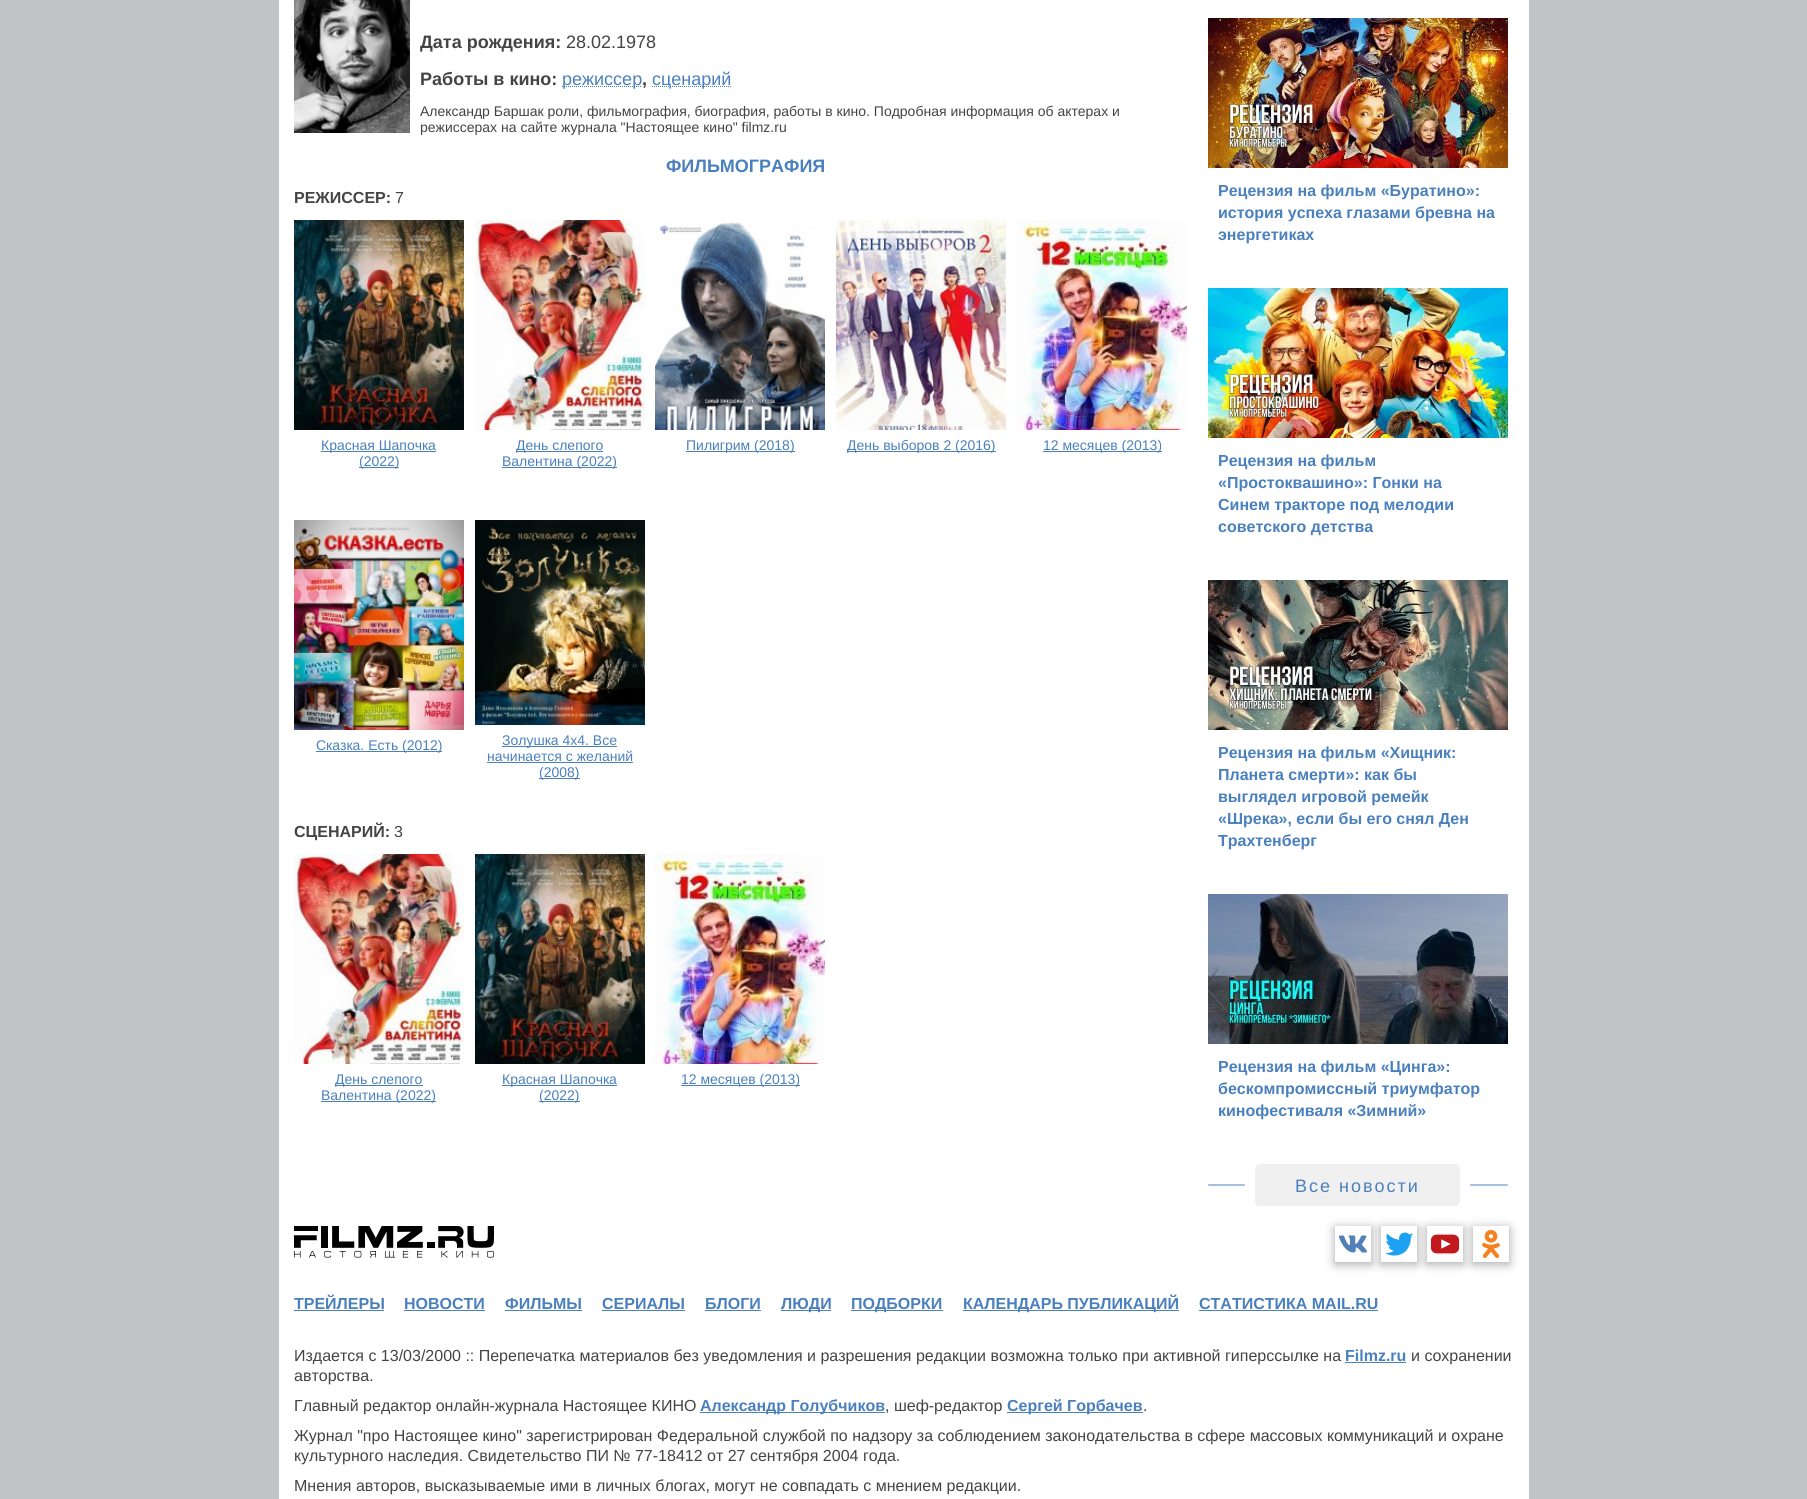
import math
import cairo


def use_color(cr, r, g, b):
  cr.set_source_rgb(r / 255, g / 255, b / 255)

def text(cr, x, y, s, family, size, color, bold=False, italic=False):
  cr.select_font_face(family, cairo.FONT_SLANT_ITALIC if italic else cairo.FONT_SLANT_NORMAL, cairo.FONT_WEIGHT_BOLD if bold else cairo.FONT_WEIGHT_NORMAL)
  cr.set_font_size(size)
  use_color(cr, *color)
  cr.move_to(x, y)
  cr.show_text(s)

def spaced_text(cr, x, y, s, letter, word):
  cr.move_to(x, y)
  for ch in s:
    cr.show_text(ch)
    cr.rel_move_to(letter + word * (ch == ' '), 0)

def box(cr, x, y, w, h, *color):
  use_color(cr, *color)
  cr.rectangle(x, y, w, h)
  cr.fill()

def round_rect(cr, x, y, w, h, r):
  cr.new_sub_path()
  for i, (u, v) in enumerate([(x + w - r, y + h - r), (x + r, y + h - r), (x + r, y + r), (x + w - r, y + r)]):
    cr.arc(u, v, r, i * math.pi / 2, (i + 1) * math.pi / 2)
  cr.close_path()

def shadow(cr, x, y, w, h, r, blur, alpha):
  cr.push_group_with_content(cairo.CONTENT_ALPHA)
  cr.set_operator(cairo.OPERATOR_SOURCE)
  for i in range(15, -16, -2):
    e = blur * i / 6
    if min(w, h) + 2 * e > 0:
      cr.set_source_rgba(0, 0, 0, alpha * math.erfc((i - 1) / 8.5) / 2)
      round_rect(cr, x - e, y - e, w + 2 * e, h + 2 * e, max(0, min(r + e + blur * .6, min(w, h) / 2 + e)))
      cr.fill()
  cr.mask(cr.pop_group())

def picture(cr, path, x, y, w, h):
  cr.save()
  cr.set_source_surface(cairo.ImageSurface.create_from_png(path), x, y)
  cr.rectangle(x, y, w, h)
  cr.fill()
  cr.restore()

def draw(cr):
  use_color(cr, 193, 196, 197)
  cr.paint()
  box(cr, 279, 0, 1250, 1499, 255, 255, 255)
  picture(cr, "img_01.png", 294, 0, 116, 133)
  cr.new_path()
  cr.move_to(562, 86.5)
  cr.line_to(642, 86.5)
  use_color(cr, 74, 128, 190)
  cr.set_line_width(1)
  cr.set_dash([1, 1])
  cr.stroke()
  cr.new_path()
  cr.move_to(652, 86.5)
  cr.line_to(731.5, 86.5)
  cr.stroke()
  picture(cr, "img_02.png", 294, 220, 170, 210)
  box(cr, 321, 451, 115, 1, 74, 128, 190)
  box(cr, 359, 467, 40, 1, 74, 128, 190)
  picture(cr, "img_03.png", 475, 220, 170, 210)
  box(cr, 516, 451, 87, 1, 74, 128, 190)
  box(cr, 502, 467, 115, 1, 74, 128, 190)
  picture(cr, "img_04.png", 655, 220, 170, 210)
  box(cr, 686, 451, 109, 1, 74, 128, 190)
  picture(cr, "img_05.png", 836, 220, 170, 210)
  box(cr, 847, 451, 149, 1, 74, 128, 190)
  picture(cr, "img_06.png", 1017, 220, 170, 210)
  box(cr, 1043, 451, 119, 1, 74, 128, 190)
  picture(cr, "img_07.png", 294, 520, 170, 210)
  box(cr, 316, 751, 126, 1, 74, 128, 190)
  picture(cr, "img_08.png", 475, 520, 170, 205)
  box(cr, 502, 746, 115, 1, 74, 128, 190)
  box(cr, 487, 762, 146, 1, 74, 128, 190)
  box(cr, 539, 778, 41, 1, 74, 128, 190)
  picture(cr, "img_03.png", 294, 854, 170, 210)
  box(cr, 335, 1085, 88, 1, 74, 128, 190)
  box(cr, 321, 1101, 115, 1, 74, 128, 190)
  picture(cr, "img_02.png", 475, 854, 170, 210)
  box(cr, 502, 1085, 115, 1, 74, 128, 190)
  box(cr, 539, 1101, 41, 1, 74, 128, 190)
  picture(cr, "img_09.png", 655, 854, 170, 210)
  box(cr, 681, 1085, 119, 1, 74, 128, 190)
  picture(cr, "img_10.png", 1208, 18, 300, 150)
  picture(cr, "img_11.png", 1208, 288, 300, 150)
  picture(cr, "img_12.png", 1208, 580, 300, 150)
  picture(cr, "img_13.png", 1208, 894, 300, 150)
  use_color(cr, 165, 192, 223)
  round_rect(cr, 1208, 1184, 37, 2, 1)
  cr.fill()
  use_color(cr, 240, 240, 240)
  round_rect(cr, 1255, 1164, 205, 42, 5)
  cr.fill()
  use_color(cr, 165, 192, 223)
  round_rect(cr, 1470, 1184, 38, 2, 1)
  cr.fill()
  picture(cr, "img_14.png", 294, 1226, 200, 32)
  cr.save()
  cr.set_fill_rule(cairo.FILL_RULE_EVEN_ODD)
  cr.new_path()
  cr.move_to(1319, 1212)
  cr.line_to(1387, 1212)
  cr.line_to(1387, 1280)
  cr.line_to(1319, 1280)
  cr.close_path()
  cr.move_to(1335, 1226)
  cr.line_to(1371, 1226)
  cr.line_to(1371, 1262)
  cr.line_to(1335, 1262)
  cr.close_path()
  cr.clip()
  use_color(cr, 0, 0, 0)
  shadow(cr, 1335, 1228, 36, 36, 0, 5, 0.35)
  cr.restore()
  picture(cr, "img_15.png", 1338, 1235, 29, 18)
  cr.save()
  cr.set_fill_rule(cairo.FILL_RULE_EVEN_ODD)
  cr.new_path()
  cr.move_to(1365, 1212)
  cr.line_to(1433, 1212)
  cr.line_to(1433, 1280)
  cr.line_to(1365, 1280)
  cr.close_path()
  cr.move_to(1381, 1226)
  cr.line_to(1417, 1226)
  cr.line_to(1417, 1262)
  cr.line_to(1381, 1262)
  cr.close_path()
  cr.clip()
  use_color(cr, 0, 0, 0)
  shadow(cr, 1381, 1228, 36, 36, 0, 5, 0.35)
  cr.restore()
  picture(cr, "img_16.png", 1385, 1232, 28, 24)
  cr.save()
  cr.set_fill_rule(cairo.FILL_RULE_EVEN_ODD)
  cr.new_path()
  cr.move_to(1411, 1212)
  cr.line_to(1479, 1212)
  cr.line_to(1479, 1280)
  cr.line_to(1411, 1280)
  cr.close_path()
  cr.move_to(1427, 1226)
  cr.line_to(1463, 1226)
  cr.line_to(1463, 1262)
  cr.line_to(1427, 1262)
  cr.close_path()
  cr.clip()
  use_color(cr, 0, 0, 0)
  shadow(cr, 1427, 1228, 36, 36, 0, 5, 0.35)
  cr.restore()
  picture(cr, "img_17.png", 1430, 1234, 30, 20)
  cr.save()
  cr.set_fill_rule(cairo.FILL_RULE_EVEN_ODD)
  cr.new_path()
  cr.move_to(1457, 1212)
  cr.line_to(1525, 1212)
  cr.line_to(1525, 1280)
  cr.line_to(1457, 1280)
  cr.close_path()
  cr.move_to(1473, 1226)
  cr.line_to(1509, 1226)
  cr.line_to(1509, 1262)
  cr.line_to(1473, 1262)
  cr.close_path()
  cr.clip()
  use_color(cr, 0, 0, 0)
  shadow(cr, 1473, 1228, 36, 36, 0, 5, 0.35)
  cr.restore()
  picture(cr, "img_18.png", 1482, 1230, 18, 29)
  box(cr, 294, 1310, 90, 1, 74, 128, 190)
  box(cr, 404, 1310, 81, 1, 74, 128, 190)
  box(cr, 505, 1310, 77, 1, 74, 128, 190)
  box(cr, 602, 1310, 83, 1, 74, 128, 190)
  box(cr, 705, 1310, 56, 1, 74, 128, 190)
  box(cr, 781, 1310, 50, 1, 74, 128, 190)
  box(cr, 851, 1310, 92, 1, 74, 128, 190)
  box(cr, 963, 1310, 216, 1, 74, 128, 190)
  box(cr, 1199, 1310, 179, 1, 74, 128, 190)
  box(cr, 1345, 1362, 61, 1, 74, 128, 190)
  box(cr, 700, 1412, 185, 1, 74, 128, 190)
  box(cr, 1007, 1412, 136, 1, 74, 128, 190)
  text(cr, 420, 48, "Дата рождения:", "Liberation Sans", 18, (68, 68, 68), bold=True)
  text(cr, 566, 48, "28.02.1978", "Liberation Sans", 18, (68, 68, 68))
  text(cr, 420, 85, "Работы в кино:", "Liberation Sans", 18, (68, 68, 68), bold=True)
  text(cr, 562, 85, "режиссер", "Liberation Sans", 18, (74, 128, 190))
  text(cr, 642, 85, ",", "Liberation Sans", 18, (68, 68, 68), bold=True)
  text(cr, 652, 85, "сценарий", "Liberation Sans", 18, (74, 128, 190))
  text(cr, 420, 116, "Александр Баршак роли, фильмография, биография, работы в кино. Подробная информация об актерах и", "Liberation Sans", 14, (68, 68, 68))
  text(cr, 420, 132, "режиссерах на сайте журнала \"Настоящее кино\" filmz.ru", "Liberation Sans", 14, (68, 68, 68))
  text(cr, 666, 172, "ФИЛЬМОГРАФИЯ", "Liberation Sans", 18, (74, 128, 190), bold=True)
  text(cr, 294, 203, "РЕЖИССЕР:", "Liberation Sans", 16, (68, 68, 68), bold=True)
  text(cr, 395, 203, "7", "Liberation Sans", 16, (68, 68, 68))
  text(cr, 321, 450, "Красная Шапочка", "Liberation Sans", 14, (74, 128, 190))
  text(cr, 359, 466, "(2022)", "Liberation Sans", 14, (74, 128, 190))
  text(cr, 516, 450, "День слепого", "Liberation Sans", 14, (74, 128, 190))
  text(cr, 502, 466, "Валентина (2022)", "Liberation Sans", 14, (74, 128, 190))
  text(cr, 686, 450, "Пилигрим (2018)", "Liberation Sans", 14, (74, 128, 190))
  text(cr, 847, 450, "День выборов 2 (2016)", "Liberation Sans", 14, (74, 128, 190))
  text(cr, 1043, 450, "12 месяцев (2013)", "Liberation Sans", 14, (74, 128, 190))
  text(cr, 316, 750, "Сказка. Есть (2012)", "Liberation Sans", 14, (74, 128, 190))
  text(cr, 502, 745, "Золушка 4х4. Все", "Liberation Sans", 14, (74, 128, 190))
  text(cr, 487, 761, "начинается с желаний", "Liberation Sans", 14, (74, 128, 190))
  text(cr, 539, 777, "(2008)", "Liberation Sans", 14, (74, 128, 190))
  text(cr, 294, 837, "СЦЕНАРИЙ:", "Liberation Sans", 16, (68, 68, 68), bold=True)
  text(cr, 394, 837, "3", "Liberation Sans", 16, (68, 68, 68))
  text(cr, 335, 1084, "День слепого", "Liberation Sans", 14, (74, 128, 190))
  text(cr, 321, 1100, "Валентина (2022)", "Liberation Sans", 14, (74, 128, 190))
  text(cr, 502, 1084, "Красная Шапочка", "Liberation Sans", 14, (74, 128, 190))
  text(cr, 539, 1100, "(2022)", "Liberation Sans", 14, (74, 128, 190))
  text(cr, 681, 1084, "12 месяцев (2013)", "Liberation Sans", 14, (74, 128, 190))
  text(cr, 1218, 196, "Рецензия на фильм «Буратино»:", "Liberation Sans", 16, (74, 128, 190), bold=True)
  text(cr, 1218, 218, "история успеха глазами бревна на", "Liberation Sans", 16, (74, 128, 190), bold=True)
  text(cr, 1218, 240, "энергетиках", "Liberation Sans", 16, (74, 128, 190), bold=True)
  text(cr, 1218, 466, "Рецензия на фильм", "Liberation Sans", 16, (74, 128, 190), bold=True)
  text(cr, 1218, 488, "«Простоквашино»: Гонки на", "Liberation Sans", 16, (74, 128, 190), bold=True)
  text(cr, 1218, 510, "Синем тракторе под мелодии", "Liberation Sans", 16, (74, 128, 190), bold=True)
  text(cr, 1218, 532, "советского детства", "Liberation Sans", 16, (74, 128, 190), bold=True)
  text(cr, 1218, 758, "Рецензия на фильм «Хищник:", "Liberation Sans", 16, (74, 128, 190), bold=True)
  text(cr, 1218, 780, "Планета смерти»: как бы", "Liberation Sans", 16, (74, 128, 190), bold=True)
  text(cr, 1218, 802, "выглядел игровой ремейк", "Liberation Sans", 16, (74, 128, 190), bold=True)
  text(cr, 1218, 824, "«Шрека», если бы его снял Ден", "Liberation Sans", 16, (74, 128, 190), bold=True)
  text(cr, 1218, 846, "Трахтенберг", "Liberation Sans", 16, (74, 128, 190), bold=True)
  text(cr, 1218, 1072, "Рецензия на фильм «Цинга»:", "Liberation Sans", 16, (74, 128, 190), bold=True)
  text(cr, 1218, 1094, "бескомпромиссный триумфатор", "Liberation Sans", 16, (74, 128, 190), bold=True)
  text(cr, 1218, 1116, "кинофестиваля «Зимний»", "Liberation Sans", 16, (74, 128, 190), bold=True)
  cr.select_font_face("Liberation Sans")
  cr.set_font_size(18)
  spaced_text(cr, 1295, 1192, "Все новости", 2, 0)
  text(cr, 294, 1309, "ТРЕЙЛЕРЫ", "Liberation Sans", 16, (74, 128, 190), bold=True)
  text(cr, 404, 1309, "НОВОСТИ", "Liberation Sans", 16, (74, 128, 190), bold=True)
  text(cr, 505, 1309, "ФИЛЬМЫ", "Liberation Sans", 16, (74, 128, 190), bold=True)
  text(cr, 602, 1309, "СЕРИАЛЫ", "Liberation Sans", 16, (74, 128, 190), bold=True)
  text(cr, 705, 1309, "БЛОГИ", "Liberation Sans", 16, (74, 128, 190), bold=True)
  text(cr, 781, 1309, "ЛЮДИ", "Liberation Sans", 16, (74, 128, 190), bold=True)
  text(cr, 851, 1309, "ПОДБОРКИ", "Liberation Sans", 16, (74, 128, 190), bold=True)
  text(cr, 963, 1309, "КАЛЕНДАРЬ ПУБЛИКАЦИЙ", "Liberation Sans", 16, (74, 128, 190), bold=True)
  text(cr, 1199, 1309, "СТАТИСТИКА MAIL.RU", "Liberation Sans", 16, (74, 128, 190), bold=True)
  text(cr, 294, 1361, "Издается с 13/03/2000 :: Перепечатка материалов без уведомления и разрешения редакции возможна только при активной гиперссылке на", "Liberation Sans", 16, (68, 68, 68))
  text(cr, 1345, 1361, "Filmz.ru", "Liberation Sans", 16, (74, 128, 190), bold=True)
  text(cr, 1411, 1361, "и сохранении", "Liberation Sans", 16, (68, 68, 68))
  text(cr, 294, 1381, "авторства.", "Liberation Sans", 16, (68, 68, 68))
  text(cr, 294, 1411, "Главный редактор онлайн-журнала Настоящее КИНО", "Liberation Sans", 16, (68, 68, 68))
  text(cr, 700, 1411, "Александр Голубчиков", "Liberation Sans", 16, (74, 128, 190), bold=True)
  text(cr, 885, 1411, ", шеф-редактор", "Liberation Sans", 16, (68, 68, 68))
  text(cr, 1007, 1411, "Сергей Горбачев", "Liberation Sans", 16, (74, 128, 190), bold=True)
  text(cr, 1143, 1411, ".", "Liberation Sans", 16, (68, 68, 68))
  text(cr, 294, 1441, "Журнал \"про Настоящее кино\" зарегистрирован Федеральной службой по надзору за соблюдением законодательства в сфере массовых коммуникаций и охране", "Liberation Sans", 16, (68, 68, 68))
  text(cr, 294, 1461, "культурного наследия. Свидетельство ПИ № 77-18412 от 27 сентября 2004 года.", "Liberation Sans", 16, (68, 68, 68))
  text(cr, 294, 1491, "Мнения авторов, высказываемые ими в личных блогах, могут не совпадать с мнением редакции.", "Liberation Sans", 16, (68, 68, 68))


surface = cairo.ImageSurface(cairo.FORMAT_RGB24, 1807, 1499)
cr = cairo.Context(surface)
options = cairo.FontOptions()
options.set_hint_metrics(cairo.HINT_METRICS_OFF)
options.set_hint_style(cairo.HINT_STYLE_NONE)
cr.set_font_options(options)
cr.set_miter_limit(4)
draw(cr)
surface.write_to_png("out.png")
